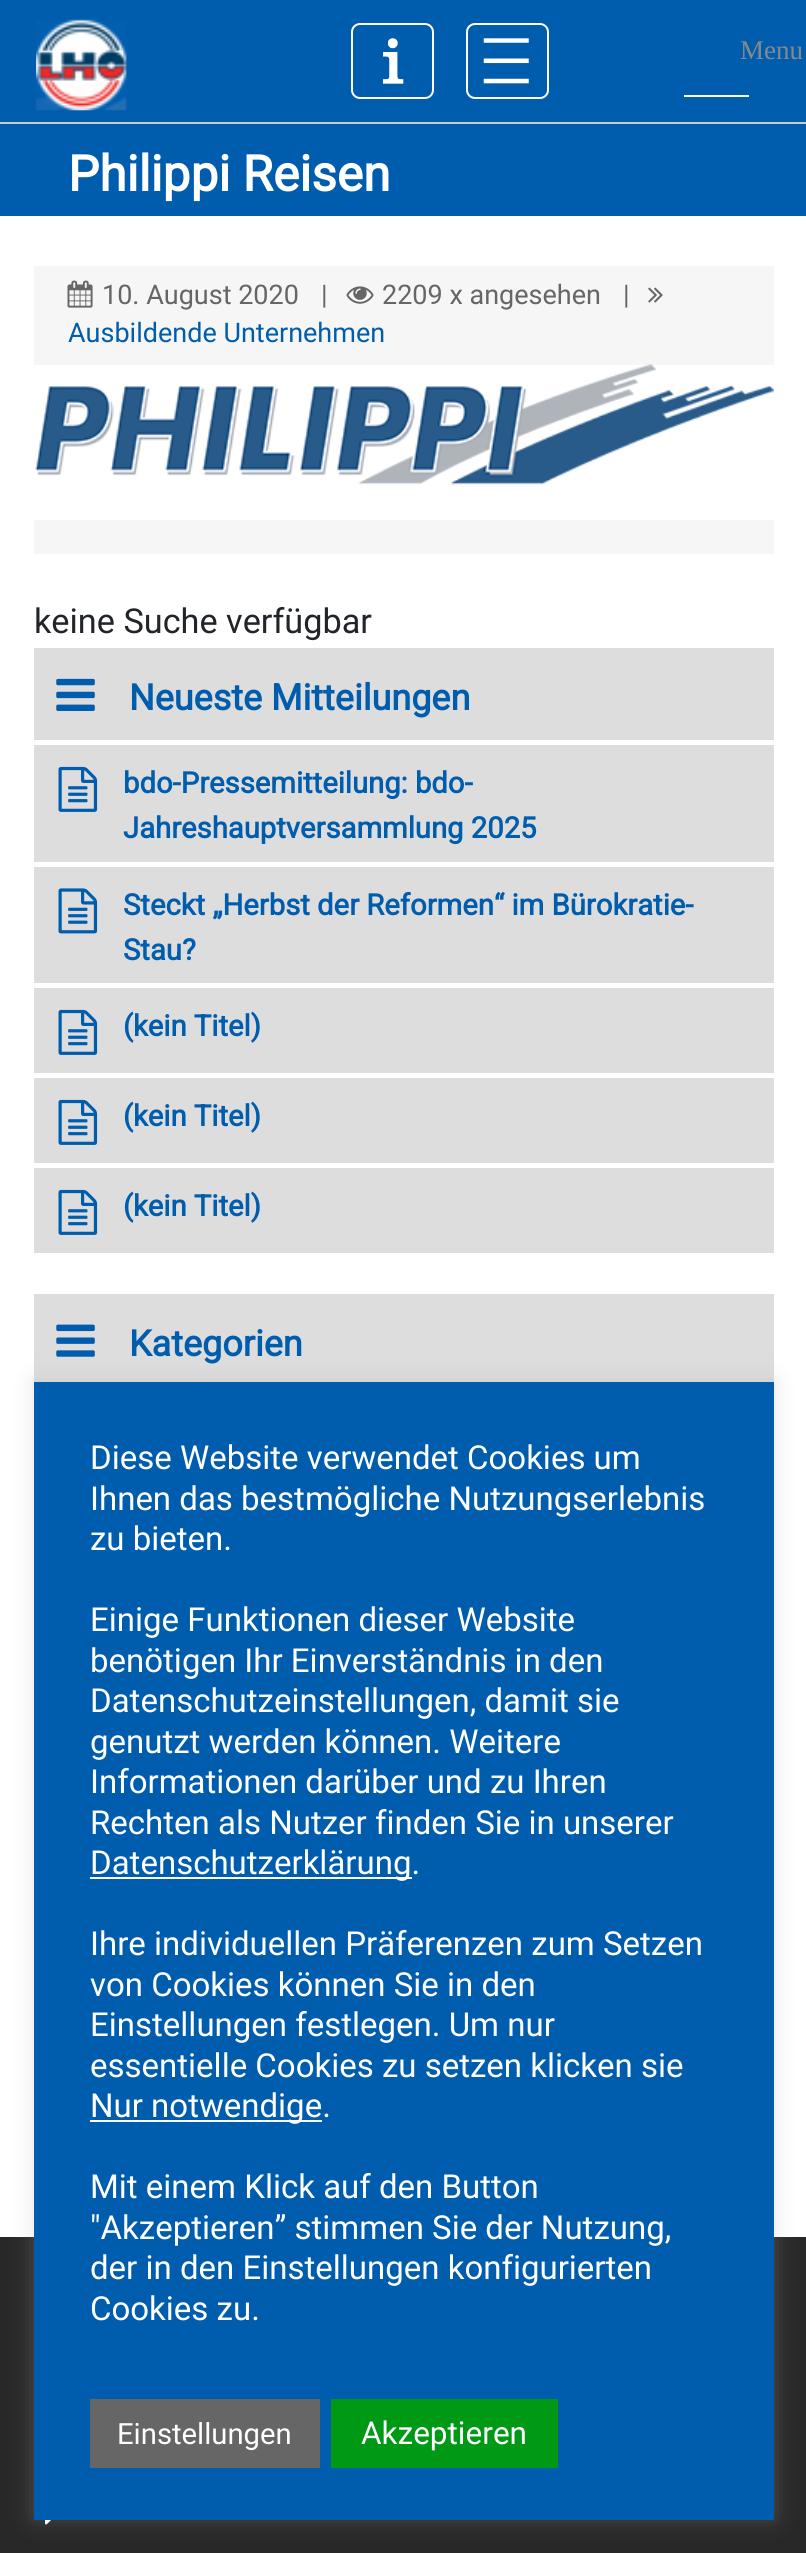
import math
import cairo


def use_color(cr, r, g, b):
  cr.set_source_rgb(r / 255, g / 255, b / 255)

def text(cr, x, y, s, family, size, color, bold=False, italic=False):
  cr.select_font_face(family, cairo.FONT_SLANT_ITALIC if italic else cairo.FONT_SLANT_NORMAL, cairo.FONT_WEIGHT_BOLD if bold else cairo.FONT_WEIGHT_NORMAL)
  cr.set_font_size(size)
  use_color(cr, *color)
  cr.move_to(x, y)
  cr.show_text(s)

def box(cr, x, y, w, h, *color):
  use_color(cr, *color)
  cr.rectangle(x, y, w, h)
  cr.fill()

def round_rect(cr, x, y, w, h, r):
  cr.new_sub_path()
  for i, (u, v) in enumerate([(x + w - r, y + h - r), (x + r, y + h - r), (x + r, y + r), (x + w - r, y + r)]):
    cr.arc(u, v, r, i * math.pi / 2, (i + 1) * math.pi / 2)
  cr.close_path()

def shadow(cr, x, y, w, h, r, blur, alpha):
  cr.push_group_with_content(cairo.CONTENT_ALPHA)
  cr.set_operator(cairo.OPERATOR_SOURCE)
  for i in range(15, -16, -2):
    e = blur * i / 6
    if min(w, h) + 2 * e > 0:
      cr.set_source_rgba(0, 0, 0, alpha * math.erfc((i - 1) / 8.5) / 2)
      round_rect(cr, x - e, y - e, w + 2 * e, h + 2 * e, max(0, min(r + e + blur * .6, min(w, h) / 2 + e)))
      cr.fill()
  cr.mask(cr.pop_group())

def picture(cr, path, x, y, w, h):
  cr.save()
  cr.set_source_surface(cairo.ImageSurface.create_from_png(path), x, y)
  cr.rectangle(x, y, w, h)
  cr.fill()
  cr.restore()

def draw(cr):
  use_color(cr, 255, 255, 255)
  cr.paint()
  box(cr, 0, 0, 806, 122, 0, 93, 174)
  box(cr, 0, 122, 806, 2, 204, 204, 204)
  picture(cr, "img_01.png", 36, 19, 91, 92)
  round_rect(cr, 352, 24, 81, 74, 8)
  use_color(cr, 255, 255, 255)
  cr.stroke()
  picture(cr, "img_02.png", 383, 38, 21, 46)
  round_rect(cr, 467, 24, 81, 74, 8)
  cr.stroke()
  picture(cr, "img_03.png", 483, 38, 46, 46)
  box(cr, 684, 95, 65, 2, 255, 255, 255)
  box(cr, 0, 124, 806, 92, 0, 93, 174)
  box(cr, 34, 266, 740, 99, 246, 246, 246)
  picture(cr, "img_04.png", 67, 280, 26, 28)
  picture(cr, "img_05.png", 346, 286, 28, 18)
  picture(cr, "img_06.png", 648, 287, 15, 16)
  picture(cr, "img_07.png", 35, 364, 739, 121)
  box(cr, 34, 520, 740, 34, 246, 246, 246)
  box(cr, 34, 648, 740, 92, 221, 221, 221)
  picture(cr, "img_08.png", 56, 678, 39, 33)
  box(cr, 34, 745, 740, 508, 221, 221, 221)
  box(cr, 34, 862, 740, 5, 255, 255, 255)
  picture(cr, "img_09.png", 58, 766, 40, 46)
  box(cr, 34, 983, 740, 5, 255, 255, 255)
  picture(cr, "img_10.png", 58, 888, 40, 46)
  box(cr, 34, 1073, 740, 5, 255, 255, 255)
  picture(cr, "img_09.png", 58, 1009, 40, 46)
  box(cr, 34, 1163, 740, 5, 255, 255, 255)
  picture(cr, "img_09.png", 58, 1099, 40, 46)
  picture(cr, "img_09.png", 58, 1189, 40, 46)
  box(cr, 34, 1294, 740, 88, 221, 221, 221)
  picture(cr, "img_11.png", 56, 1324, 39, 33)
  box(cr, 0, 2237, 806, 316, 40, 40, 40)
  picture(cr, "img_12.png", 45, 2520, 6, 5)
  use_color(cr, 172, 171, 171)
  shadow(cr, 34, 1379, 740, 1139, 0, 11, 0.3)
  box(cr, 34, 1382, 740, 1138, 0, 93, 174)
  box(cr, 90, 1877, 322, 2, 255, 255, 255)
  box(cr, 90, 2120, 232, 2, 255, 255, 255)
  box(cr, 90, 2399, 230, 69, 102, 102, 102)
  box(cr, 331, 2399, 227, 69, 0, 153, 22)
  text(cr, 740, 59, "Menu", "Liberation Serif", 27, (136, 136, 136))
  text(cr, 68, 191, "Philippi Reisen", "Roboto", 49.5, (255, 255, 255), bold=True)
  text(cr, 102, 304, "10. August 2020", "Roboto", 27, (102, 102, 102))
  text(cr, 321, 304, "|", "Roboto", 27, (102, 102, 102))
  text(cr, 382, 304, "2209 x angesehen", "Roboto", 27, (102, 102, 102))
  text(cr, 623, 304, "|", "Roboto", 27, (102, 102, 102))
  text(cr, 68, 342, "Ausbildende Unternehmen", "Roboto", 27, (0, 93, 174))
  text(cr, 34, 633, "keine Suche verfügbar", "Roboto", 34.25, (33, 37, 41))
  text(cr, 129, 710, "Neueste Mitteilungen", "Roboto", 36, (0, 93, 174), bold=True)
  text(cr, 123, 793, "bdo-Pressemitteilung: bdo-", "Roboto", 29.25, (0, 93, 174), bold=True)
  text(cr, 123, 838, "Jahreshauptversammlung 2025", "Roboto", 29.25, (0, 93, 174), bold=True)
  text(cr, 123, 915, "Steckt „Herbst der Reformen“ im Bürokratie-", "Roboto", 29.25, (0, 93, 174), bold=True)
  text(cr, 123, 960, "Stau?", "Roboto", 29.25, (0, 93, 174), bold=True)
  text(cr, 123, 1036, "(kein Titel)", "Roboto", 29.25, (0, 93, 174), bold=True)
  text(cr, 123, 1126, "(kein Titel)", "Roboto", 29.25, (0, 93, 174), bold=True)
  text(cr, 123, 1216, "(kein Titel)", "Roboto", 29.25, (0, 93, 174), bold=True)
  text(cr, 129, 1356, "Kategorien", "Roboto", 36, (0, 93, 174), bold=True)
  text(cr, 90, 1469, "Diese Website verwendet Cookies um", "Roboto", 33, (255, 255, 255))
  text(cr, 90, 1510, "Ihnen das bestmögliche Nutzungserlebnis", "Roboto", 33, (255, 255, 255))
  text(cr, 90, 1550, "zu bieten.", "Roboto", 33, (255, 255, 255))
  text(cr, 90, 1631, "Einige Funktionen dieser Website", "Roboto", 33, (255, 255, 255))
  text(cr, 90, 1672, "benötigen Ihr Einverständnis in den", "Roboto", 33, (255, 255, 255))
  text(cr, 90, 1712, "Datenschutzeinstellungen, damit sie", "Roboto", 33, (255, 255, 255))
  text(cr, 90, 1753, "genutzt werden können. Weitere", "Roboto", 33, (255, 255, 255))
  text(cr, 90, 1793, "Informationen darüber und zu Ihren", "Roboto", 33, (255, 255, 255))
  text(cr, 90, 1834, "Rechten als Nutzer finden Sie in unserer", "Roboto", 33, (255, 255, 255))
  text(cr, 90, 1874, "Datenschutzerklärung.", "Roboto", 33, (255, 255, 255))
  text(cr, 90, 1955, "Ihre individuellen Präferenzen zum Setzen", "Roboto", 33, (255, 255, 255))
  text(cr, 90, 1996, "von Cookies können Sie in den", "Roboto", 33, (255, 255, 255))
  text(cr, 90, 2036, "Einstellungen festlegen. Um nur", "Roboto", 33, (255, 255, 255))
  text(cr, 90, 2077, "essentielle Cookies zu setzen klicken sie", "Roboto", 33, (255, 255, 255))
  text(cr, 90, 2117, "Nur notwendige.", "Roboto", 33, (255, 255, 255))
  text(cr, 90, 2198, "Mit einem Klick auf den Button", "Roboto", 33, (255, 255, 255))
  text(cr, 90, 2239, "\"Akzeptieren” stimmen Sie der Nutzung,", "Roboto", 33, (255, 255, 255))
  text(cr, 90, 2279, "der in den Einstellungen konfigurierten", "Roboto", 33, (255, 255, 255))
  text(cr, 90, 2320, "Cookies zu.", "Roboto", 33, (255, 255, 255))
  text(cr, 117, 2444, "Einstellungen", "Roboto", 29.25, (255, 255, 255))
  text(cr, 361, 2444, "Akzeptieren", "Roboto", 31.5, (255, 255, 255))


surface = cairo.ImageSurface(cairo.FORMAT_RGB24, 806, 2553)
cr = cairo.Context(surface)
options = cairo.FontOptions()
options.set_hint_metrics(cairo.HINT_METRICS_OFF)
options.set_hint_style(cairo.HINT_STYLE_NONE)
cr.set_font_options(options)
cr.set_miter_limit(4)
draw(cr)
surface.write_to_png("out.png")
